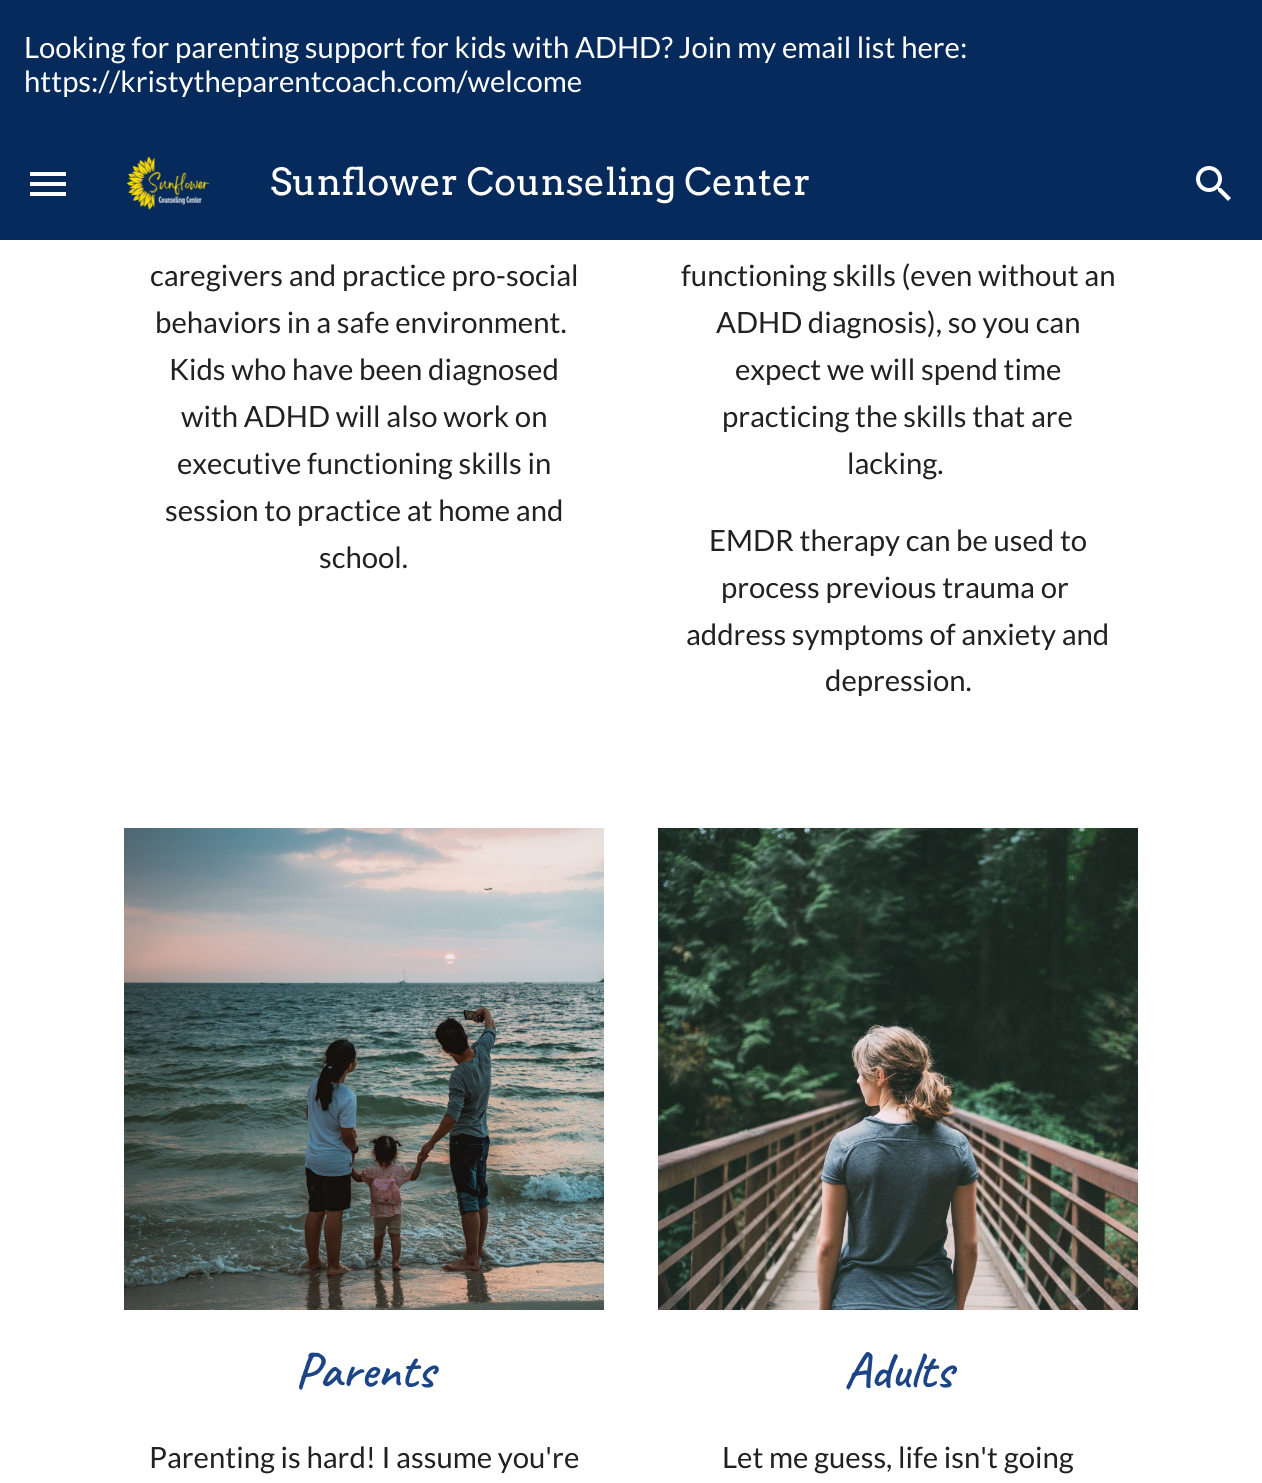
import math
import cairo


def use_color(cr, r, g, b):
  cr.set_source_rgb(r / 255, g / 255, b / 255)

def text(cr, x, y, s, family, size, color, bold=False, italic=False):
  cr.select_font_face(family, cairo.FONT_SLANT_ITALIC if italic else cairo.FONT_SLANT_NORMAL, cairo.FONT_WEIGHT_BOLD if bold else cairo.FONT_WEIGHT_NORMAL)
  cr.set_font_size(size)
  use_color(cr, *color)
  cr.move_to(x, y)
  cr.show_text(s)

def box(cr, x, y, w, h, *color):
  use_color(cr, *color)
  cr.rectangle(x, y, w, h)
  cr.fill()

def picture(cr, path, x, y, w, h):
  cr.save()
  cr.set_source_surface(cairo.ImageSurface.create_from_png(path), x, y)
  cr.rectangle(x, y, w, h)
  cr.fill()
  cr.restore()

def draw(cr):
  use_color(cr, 255, 255, 255)
  cr.paint()
  box(cr, 0, 0, 1262, 240, 6, 42, 91)
  box(cr, 30, 172, 36, 4, 255, 255, 255)
  box(cr, 30, 182, 36, 4, 255, 255, 255)
  box(cr, 30, 192, 36, 4, 255, 255, 255)
  picture(cr, "img_01.png", 126, 156, 84, 54)
  picture(cr, "img_02.png", 1196, 166, 35, 35)
  picture(cr, "img_03.png", 124, 828, 480, 482)
  picture(cr, "img_04.png", 658, 828, 480, 482)
  text(cr, 24, 58, "Looking for parenting support for kids with ADHD? Join my email list here:", "Lato", 29.3, (255, 255, 255))
  text(cr, 24, 92, "https://kristytheparentcoach.com/welcome", "Lato", 29.3, (255, 255, 255))
  text(cr, 270, 195, "Sunflower Counseling Center", "Arvo", 37.3, (255, 255, 255))
  text(cr, 150, 286, "caregivers and practice pro-social", "Lato", 29.3, (33, 33, 33))
  text(cr, 155, 333, "behaviors in a safe environment.", "Lato", 29.3, (33, 33, 33))
  text(cr, 169, 380, "Kids who have been diagnosed", "Lato", 29.3, (33, 33, 33))
  text(cr, 181, 427, "with ADHD will also work on", "Lato", 29.3, (33, 33, 33))
  text(cr, 177, 474, "executive functioning skills in", "Lato", 29.3, (33, 33, 33))
  text(cr, 165, 521, "session to practice at home and", "Lato", 29.3, (33, 33, 33))
  text(cr, 319, 568, "school.", "Lato", 29.3, (33, 33, 33))
  text(cr, 681, 286, "functioning skills (even without an", "Lato", 29.3, (33, 33, 33))
  text(cr, 716, 333, "ADHD diagnosis), so you can", "Lato", 29.3, (33, 33, 33))
  text(cr, 735, 380, "expect we will spend time", "Lato", 29.3, (33, 33, 33))
  text(cr, 722, 427, "practicing the skills that are", "Lato", 29.3, (33, 33, 33))
  text(cr, 847, 474, "lacking.", "Lato", 29.3, (33, 33, 33))
  text(cr, 709, 551, "EMDR therapy can be used to", "Lato", 29.3, (33, 33, 33))
  text(cr, 721, 598, "process previous trauma or", "Lato", 29.3, (33, 33, 33))
  text(cr, 686, 645, "address symptoms of anxiety and", "Lato", 29.3, (33, 33, 33))
  text(cr, 825, 691, "depression.", "Lato", 29.3, (33, 33, 33))
  text(cr, 295, 1387, "Parents", "Caveat SemiBold", 51, (28, 69, 135))
  text(cr, 149, 1468, "Parenting is hard! I assume you're", "Lato", 29.3, (33, 33, 33))
  text(cr, 844, 1387, "Adults", "Caveat SemiBold", 51, (28, 69, 135))
  text(cr, 722, 1468, "Let me guess, life isn't going", "Lato", 29.3, (33, 33, 33))


surface = cairo.ImageSurface(cairo.FORMAT_RGB24, 1262, 1483)
cr = cairo.Context(surface)
options = cairo.FontOptions()
options.set_hint_metrics(cairo.HINT_METRICS_OFF)
options.set_hint_style(cairo.HINT_STYLE_NONE)
cr.set_font_options(options)
cr.set_miter_limit(4)
draw(cr)
surface.write_to_png("out.png")
